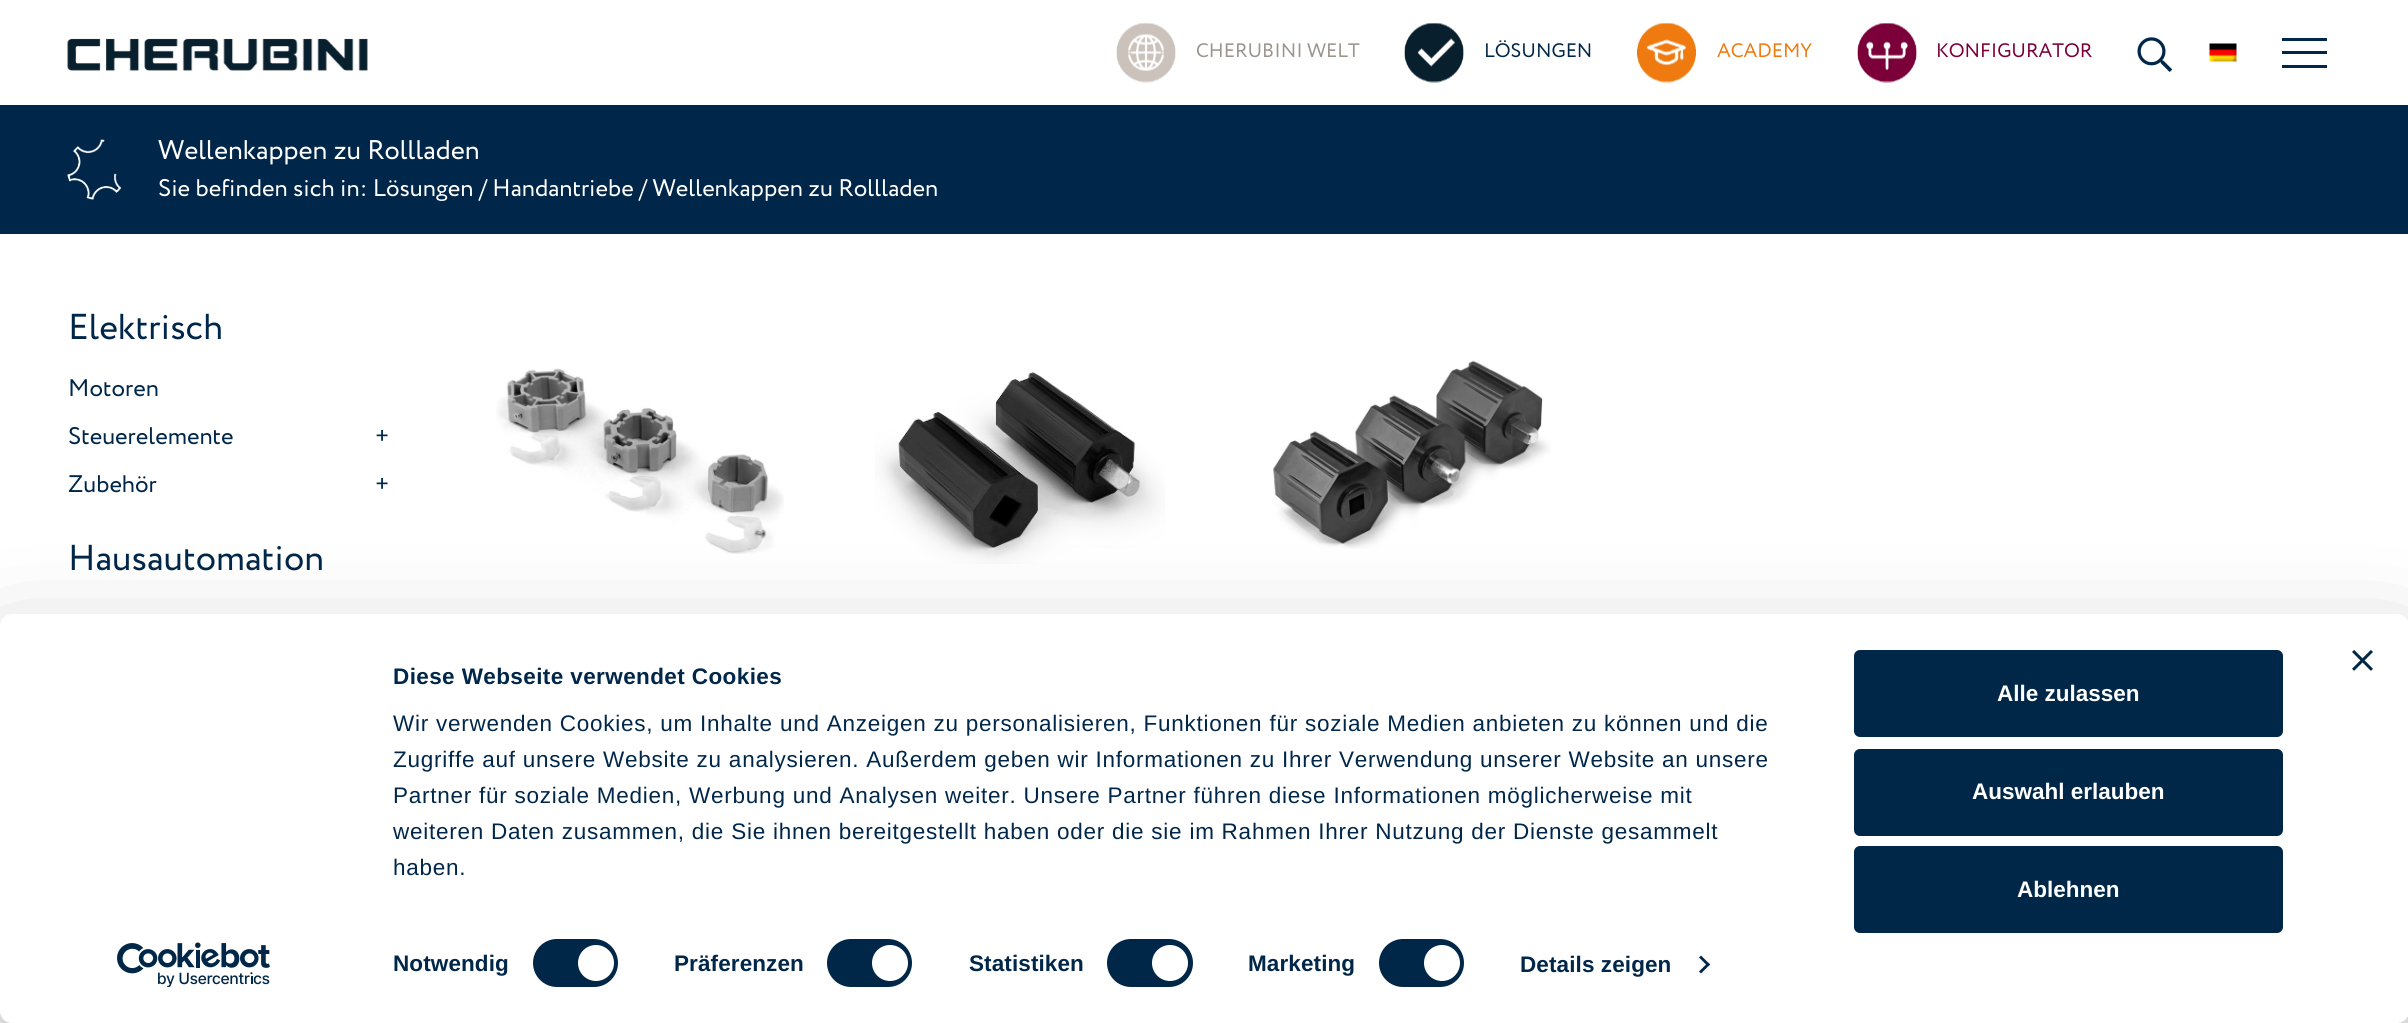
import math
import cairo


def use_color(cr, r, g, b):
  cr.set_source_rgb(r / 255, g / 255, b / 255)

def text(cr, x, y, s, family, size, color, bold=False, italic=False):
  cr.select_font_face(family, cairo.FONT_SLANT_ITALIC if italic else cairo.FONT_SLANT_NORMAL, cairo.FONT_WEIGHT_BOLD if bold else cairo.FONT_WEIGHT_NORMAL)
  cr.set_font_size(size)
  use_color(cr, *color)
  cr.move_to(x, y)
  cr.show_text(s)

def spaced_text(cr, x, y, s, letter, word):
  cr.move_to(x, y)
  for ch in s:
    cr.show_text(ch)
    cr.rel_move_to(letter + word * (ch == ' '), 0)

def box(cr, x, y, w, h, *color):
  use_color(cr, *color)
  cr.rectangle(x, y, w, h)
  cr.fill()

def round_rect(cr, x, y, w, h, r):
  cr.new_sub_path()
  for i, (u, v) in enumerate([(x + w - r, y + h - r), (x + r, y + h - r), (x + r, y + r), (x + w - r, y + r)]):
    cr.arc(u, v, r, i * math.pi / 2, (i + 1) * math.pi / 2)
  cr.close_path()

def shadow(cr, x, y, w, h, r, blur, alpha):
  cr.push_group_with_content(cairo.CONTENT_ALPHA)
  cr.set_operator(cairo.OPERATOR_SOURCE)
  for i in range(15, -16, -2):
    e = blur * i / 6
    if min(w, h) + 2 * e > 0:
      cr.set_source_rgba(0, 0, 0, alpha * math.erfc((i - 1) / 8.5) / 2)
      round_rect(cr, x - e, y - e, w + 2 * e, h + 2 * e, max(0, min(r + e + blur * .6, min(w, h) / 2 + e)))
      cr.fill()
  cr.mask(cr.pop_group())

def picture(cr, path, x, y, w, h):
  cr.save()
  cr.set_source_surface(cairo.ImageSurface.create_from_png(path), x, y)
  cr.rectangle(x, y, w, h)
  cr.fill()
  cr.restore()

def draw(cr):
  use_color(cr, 255, 255, 255)
  cr.paint()
  picture(cr, "img_01.png", 67, 38, 301, 33)
  picture(cr, "img_02.png", 1116, 23, 60, 60)
  picture(cr, "img_03.png", 1404, 23, 60, 60)
  picture(cr, "img_04.png", 1637, 23, 59, 60)
  picture(cr, "img_05.png", 1857, 23, 60, 60)
  picture(cr, "img_06.png", 2137, 37, 35, 35)
  picture(cr, "img_07.png", 2209, 43, 28, 19)
  box(cr, 2282, 38, 45, 3, 0, 39, 74)
  box(cr, 2282, 51, 45, 3, 0, 39, 74)
  box(cr, 2282, 65, 45, 3, 0, 39, 74)
  box(cr, 0, 105, 2408, 129, 0, 39, 74)
  picture(cr, "img_08.png", 67, 139, 55, 61)
  picture(cr, "img_09.png", 496, 368, 288, 186)
  picture(cr, "img_10.png", 875, 372, 290, 192)
  picture(cr, "img_11.png", 1273, 360, 278, 189)
  use_color(cr, 0, 0, 0)
  shadow(cr, 0, 659, 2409, 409, 12, 52.5, 0.3)
  use_color(cr, 255, 255, 255)
  round_rect(cr, 0, 614, 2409, 409, 12)
  cr.fill()
  picture(cr, "img_12.png", 2352, 650, 21, 21)
  use_color(cr, 0, 39, 71)
  round_rect(cr, 533, 939, 85, 48, 24)
  cr.fill()
  use_color(cr, 255, 255, 255)
  cr.arc(596, 963, 18, 0, 2 * math.pi)
  cr.fill()
  use_color(cr, 0, 39, 71)
  round_rect(cr, 827, 939, 85, 48, 24)
  cr.fill()
  use_color(cr, 255, 255, 255)
  cr.arc(890, 963, 18, 0, 2 * math.pi)
  cr.fill()
  use_color(cr, 0, 39, 71)
  round_rect(cr, 1107, 939, 86, 48, 24)
  cr.fill()
  use_color(cr, 255, 255, 255)
  cr.arc(1170, 963, 18, 0, 2 * math.pi)
  cr.fill()
  use_color(cr, 0, 39, 71)
  round_rect(cr, 1379, 939, 85, 48, 24)
  cr.fill()
  use_color(cr, 255, 255, 255)
  cr.arc(1442, 963, 18, 0, 2 * math.pi)
  cr.fill()
  use_color(cr, 0, 39, 71)
  cr.new_path()
  cr.move_to(1701, 955.5)
  cr.line_to(1710, 964.5)
  cr.line_to(1708, 966.5)
  cr.line_to(1699, 957.5)
  cr.close_path()
  cr.fill()
  cr.new_path()
  cr.move_to(1708, 962.5)
  cr.line_to(1710, 964.5)
  cr.line_to(1701, 973.5)
  cr.line_to(1699, 971.5)
  cr.close_path()
  cr.fill()
  round_rect(cr, 1855.5, 651.5, 426, 84, 4.5)
  cr.fill_preserve()
  cr.set_line_width(3)
  cr.stroke()
  round_rect(cr, 1855.5, 750.5, 426, 84, 4.5)
  cr.fill_preserve()
  cr.stroke()
  round_rect(cr, 1855.5, 847.5, 426, 84, 4.5)
  cr.fill_preserve()
  cr.stroke()
  picture(cr, "img_13.png", 117, 942, 153, 45)
  text(cr, 1196, 57, "CHERUBINI WELT", "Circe", 19.5, (155, 148, 141))
  text(cr, 1484, 57, "LÖSUNGEN", "Circe", 19.5, (0, 39, 74))
  text(cr, 1717, 57, "ACADEMY", "Circe", 19.5, (239, 123, 15))
  text(cr, 1936, 57, "KONFIGURATOR", "Circe", 19.5, (122, 0, 58))
  text(cr, 158, 159, "Wellenkappen zu Rollladen", "Circe", 27, (255, 255, 255))
  text(cr, 158, 196, "Sie befinden sich in: Lösungen / Handantriebe / Wellenkappen zu Rollladen", "Circe", 24, (255, 255, 255))
  text(cr, 68, 339, "Elektrisch", "Circe", 36, (0, 39, 74))
  text(cr, 68, 396, "Motoren", "Circe", 24, (0, 39, 74))
  text(cr, 68, 444, "Steuerelemente", "Circe", 24, (0, 39, 74))
  text(cr, 375, 444, "+", "Circe", 24, (0, 39, 74))
  text(cr, 68, 492, "Zubehör", "Circe", 24, (0, 39, 74))
  text(cr, 375, 492, "+", "Circe", 24, (0, 39, 74))
  text(cr, 68, 570, "Hausautomation", "Circe", 36, (0, 39, 74))
  cr.select_font_face("Liberation Sans", cairo.FONT_SLANT_NORMAL, cairo.FONT_WEIGHT_BOLD)
  cr.set_font_size(22.5)
  spaced_text(cr, 393, 684, "Diese Webseite verwendet Cookies", 0.4, 0)
  cr.select_font_face("Liberation Sans")
  spaced_text(cr, 393, 731, "Wir verwenden Cookies, um Inhalte und Anzeigen zu personalisieren, Funktionen für soziale Medien anbieten zu können und die", 0.75, 0)
  spaced_text(cr, 393, 767, "Zugriffe auf unsere Website zu analysieren. Außerdem geben wir Informationen zu Ihrer Verwendung unserer Website an unsere", 0.75, 0)
  spaced_text(cr, 393, 803, "Partner für soziale Medien, Werbung und Analysen weiter. Unsere Partner führen diese Informationen möglicherweise mit", 0.75, 0)
  spaced_text(cr, 393, 839, "weiteren Daten zusammen, die Sie ihnen bereitgestellt haben oder die sie im Rahmen Ihrer Nutzung der Dienste gesammelt", 0.75, 0)
  spaced_text(cr, 393, 875, "haben.", 0.75, 0)
  cr.select_font_face("Liberation Sans", cairo.FONT_SLANT_NORMAL, cairo.FONT_WEIGHT_BOLD)
  spaced_text(cr, 393, 971, "Notwendig", 0.1, 0)
  spaced_text(cr, 674, 971, "Präferenzen", 0.1, 0)
  spaced_text(cr, 969, 971, "Statistiken", 0.1, 0)
  spaced_text(cr, 1248, 971, "Marketing", 0.1, 0)
  spaced_text(cr, 1520, 972, "Details zeigen", 0.1, 0)
  text(cr, 1997, 701, "Alle zulassen", "Liberation Sans", 22.5, (255, 255, 255), bold=True)
  text(cr, 1972, 799, "Auswahl erlauben", "Liberation Sans", 22.5, (255, 255, 255), bold=True)
  text(cr, 2017, 897, "Ablehnen", "Liberation Sans", 22.5, (255, 255, 255), bold=True)


surface = cairo.ImageSurface(cairo.FORMAT_RGB24, 2408, 1023)
cr = cairo.Context(surface)
options = cairo.FontOptions()
options.set_hint_metrics(cairo.HINT_METRICS_OFF)
options.set_hint_style(cairo.HINT_STYLE_NONE)
cr.set_font_options(options)
cr.set_miter_limit(4)
draw(cr)
surface.write_to_png("out.png")
